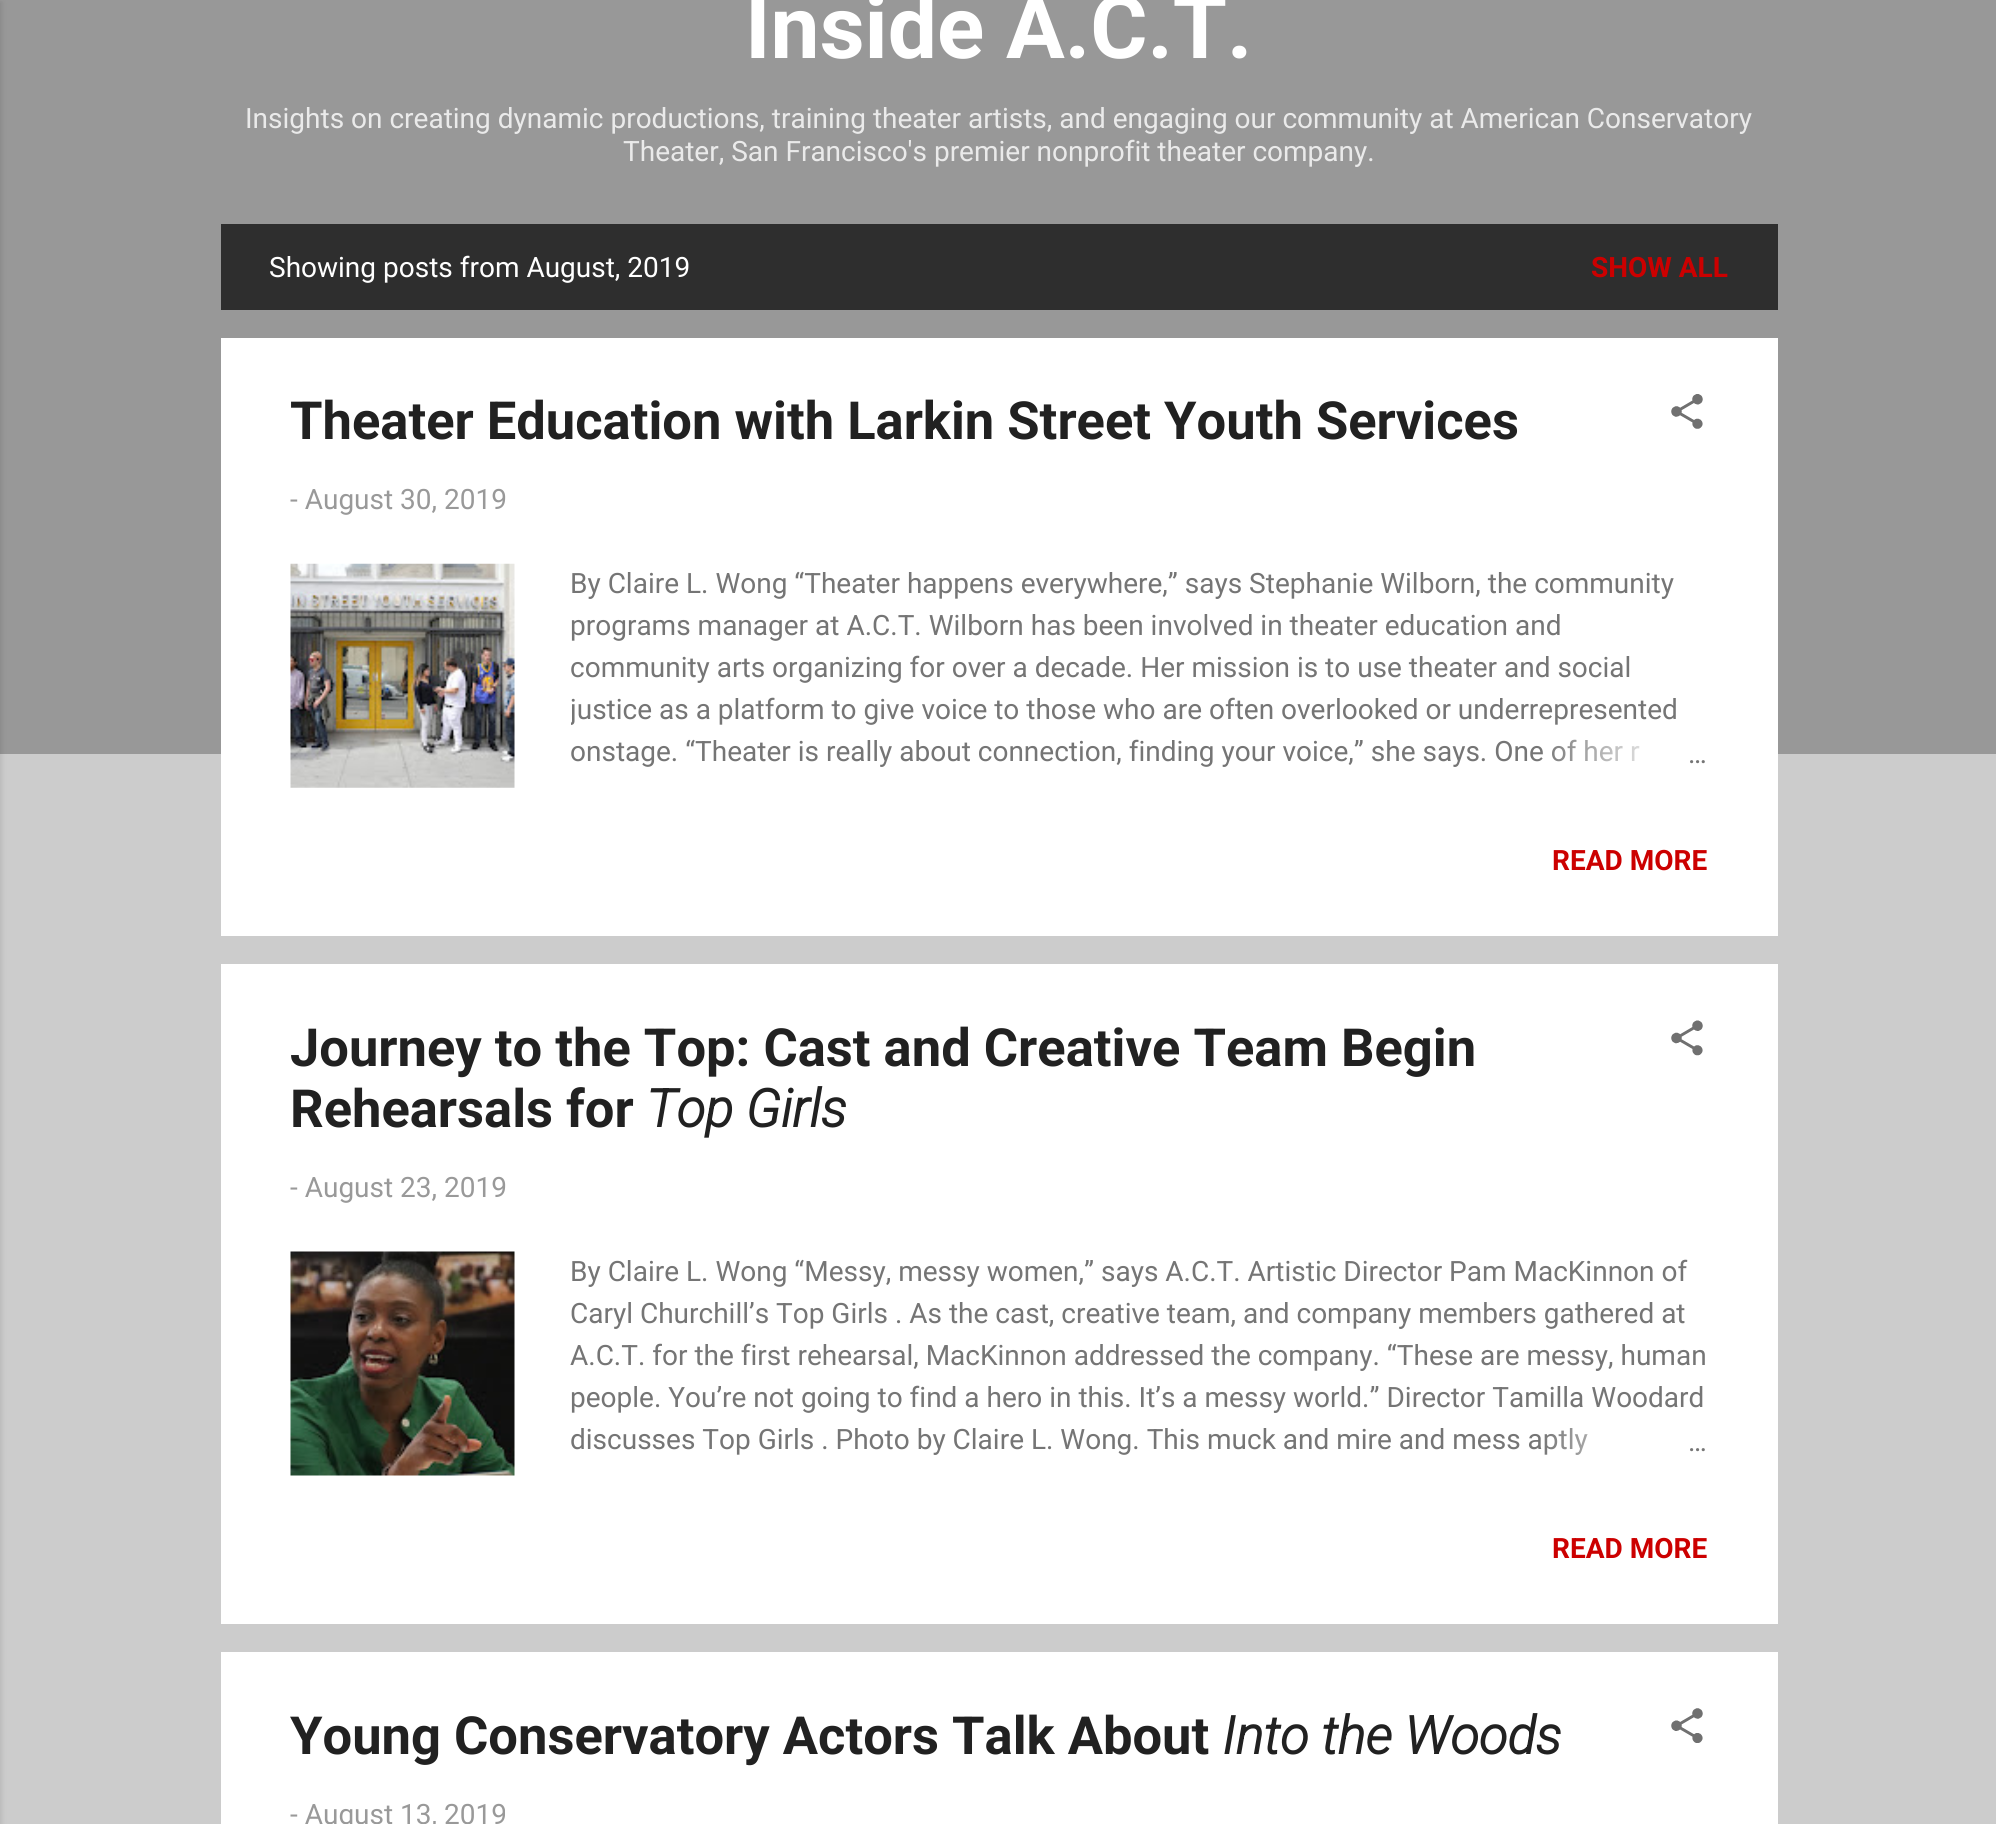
import math
import cairo


def use_color(cr, r, g, b):
  cr.set_source_rgb(r / 255, g / 255, b / 255)

def text(cr, x, y, s, family, size, color, bold=False, italic=False):
  cr.select_font_face(family, cairo.FONT_SLANT_ITALIC if italic else cairo.FONT_SLANT_NORMAL, cairo.FONT_WEIGHT_BOLD if bold else cairo.FONT_WEIGHT_NORMAL)
  cr.set_font_size(size)
  use_color(cr, *color)
  cr.move_to(x, y)
  cr.show_text(s)

def box(cr, x, y, w, h, *color):
  use_color(cr, *color)
  cr.rectangle(x, y, w, h)
  cr.fill()

def round_rect(cr, x, y, w, h, r):
  cr.new_sub_path()
  for i, (u, v) in enumerate([(x + w - r, y + h - r), (x + r, y + h - r), (x + r, y + r), (x + w - r, y + r)]):
    cr.arc(u, v, r, i * math.pi / 2, (i + 1) * math.pi / 2)
  cr.close_path()

def shadow(cr, x, y, w, h, r, blur, alpha):
  cr.push_group_with_content(cairo.CONTENT_ALPHA)
  cr.set_operator(cairo.OPERATOR_SOURCE)
  for i in range(15, -16, -2):
    e = blur * i / 6
    if min(w, h) + 2 * e > 0:
      cr.set_source_rgba(0, 0, 0, alpha * math.erfc((i - 1) / 8.5) / 2)
      round_rect(cr, x - e, y - e, w + 2 * e, h + 2 * e, max(0, min(r + e + blur * .6, min(w, h) / 2 + e)))
      cr.fill()
  cr.mask(cr.pop_group())

def picture(cr, path, x, y, w, h):
  cr.save()
  cr.set_source_surface(cairo.ImageSurface.create_from_png(path), x, y)
  cr.rectangle(x, y, w, h)
  cr.fill()
  cr.restore()

def draw(cr):
  use_color(cr, 204, 204, 204)
  cr.paint()
  box(cr, 0, 0, 1996, 754, 152, 152, 152)
  use_color(cr, 0, 0, 0)
  shadow(cr, -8, 2, 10, 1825, 0, 2.5, 0.1)
  box(cr, 221, 224, 1557, 86, 46, 46, 46)
  box(cr, 221, 338, 1557, 598, 255, 255, 255)
  picture(cr, "img_01.png", 1671, 394, 32, 35)
  picture(cr, "img_02.png", 290, 563, 225, 225)
  box(cr, 221, 964, 1557, 660, 255, 255, 255)
  picture(cr, "img_03.png", 1671, 1020, 32, 36)
  picture(cr, "img_04.png", 290, 1251, 225, 225)
  box(cr, 221, 1652, 1557, 172, 255, 255, 255)
  picture(cr, "img_05.png", 1671, 1708, 32, 35)
  text(cr, 745, 58, "Inside A.C.T.", "Roboto", 87.5, (255, 255, 255), bold=True)
  text(cr, 245, 128, "Insights on creating dynamic productions, training theater artists, and engaging our community at American Conservatory", "Roboto", 28, (234, 234, 234))
  text(cr, 623, 161, "Theater, San Francisco's premier nonprofit theater company.", "Roboto", 28, (234, 234, 234))
  text(cr, 269, 277, "Showing posts from August, 2019", "Roboto", 28, (255, 255, 255))
  text(cr, 1591, 277, "SHOW ALL", "Roboto", 28, (204, 0, 0), bold=True)
  text(cr, 290, 439, "Theater Education with Larkin Street Youth Services", "Roboto", 52.5, (33, 33, 33), bold=True)
  text(cr, 290, 509, "- August 30, 2019", "Roboto", 28, (153, 153, 153))
  text(cr, 570, 593, "By Claire L. Wong “Theater happens everywhere,” says Stephanie Wilborn, the community", "Roboto", 28, (117, 117, 117))
  text(cr, 570, 635, "programs manager at A.C.T. Wilborn has been involved in theater education and", "Roboto", 28, (117, 117, 117))
  text(cr, 570, 677, "community arts organizing for over a decade. Her mission is to use theater and social", "Roboto", 28, (117, 117, 117))
  cr.save()
  cr.rectangle(571, 564, 1137, 210)
  cr.clip()
  text(cr, 570, 719, "justice as a platform to give voice to those who are often overlooked or underrepresented", "Roboto", 28, (117, 117, 117))
  cr.restore()
  text(cr, 570, 761, "onstage. “Theater is really about connection, finding your voice,” she says. One of her r", "Roboto", 28, (117, 117, 117))
  gradient = cairo.LinearGradient(1708, 753, 1540, 753)
  gradient.add_color_stop_rgba(0, 1, 1, 1, 1)
  gradient.add_color_stop_rgba(0.2, 1, 1, 1, 1)
  gradient.add_color_stop_rgba(1, 1, 1, 1, 0)
  cr.set_source(gradient)
  cr.rectangle(1551, 739, 88, 23)
  cr.fill()
  text(cr, 1688, 763, "…", "Roboto", 28, (117, 117, 117))
  text(cr, 1552, 870, "READ MORE", "Roboto", 28, (204, 0, 0), bold=True)
  text(cr, 290, 1066, "Journey to the Top: Cast and Creative Team Begin", "Roboto", 52.5, (33, 33, 33), bold=True)
  text(cr, 290, 1127, "Rehearsals for", "Roboto", 52.5, (33, 33, 33), bold=True)
  text(cr, 646, 1127, "Top Girls", "Roboto", 52.5, (33, 33, 33), bold=True, italic=True)
  text(cr, 290, 1197, "- August 23, 2019", "Roboto", 28, (153, 153, 153))
  text(cr, 570, 1281, "By Claire L. Wong “Messy, messy women,” says A.C.T. Artistic Director Pam MacKinnon of", "Roboto", 28, (117, 117, 117))
  text(cr, 570, 1323, "Caryl Churchill’s Top Girls . As the cast, creative team, and company members gathered at", "Roboto", 28, (117, 117, 117))
  text(cr, 570, 1365, "A.C.T. for the first rehearsal, MacKinnon addressed the company. “These are messy, human", "Roboto", 28, (117, 117, 117))
  text(cr, 570, 1407, "people. You’re not going to find a hero in this. It’s a messy world.” Director Tamilla Woodard", "Roboto", 28, (117, 117, 117))
  text(cr, 570, 1449, "discusses Top Girls . Photo by Claire L. Wong. This muck and mire and mess aptly", "Roboto", 28, (117, 117, 117))
  gradient = cairo.LinearGradient(1708, 1440, 1540, 1440)
  gradient.add_color_stop_rgba(0, 1, 1, 1, 1)
  gradient.add_color_stop_rgba(0.2, 1, 1, 1, 1)
  gradient.add_color_stop_rgba(1, 1, 1, 1, 0)
  cr.set_source(gradient)
  cr.rectangle(1544, 1428, 43, 27)
  cr.fill()
  text(cr, 1688, 1451, "…", "Roboto", 28, (117, 117, 117))
  text(cr, 1552, 1558, "READ MORE", "Roboto", 28, (204, 0, 0), bold=True)
  text(cr, 290, 1754, "Young Conservatory Actors Talk About", "Roboto", 52.5, (33, 33, 33), bold=True)
  text(cr, 1222, 1754, "Into the Woods", "Roboto", 52.5, (33, 33, 33), bold=True, italic=True)
  text(cr, 290, 1824, "- August 13, 2019", "Roboto", 28, (153, 153, 153))


surface = cairo.ImageSurface(cairo.FORMAT_RGB24, 1996, 1824)
cr = cairo.Context(surface)
options = cairo.FontOptions()
options.set_hint_metrics(cairo.HINT_METRICS_OFF)
options.set_hint_style(cairo.HINT_STYLE_NONE)
cr.set_font_options(options)
cr.set_miter_limit(4)
draw(cr)
surface.write_to_png("out.png")
